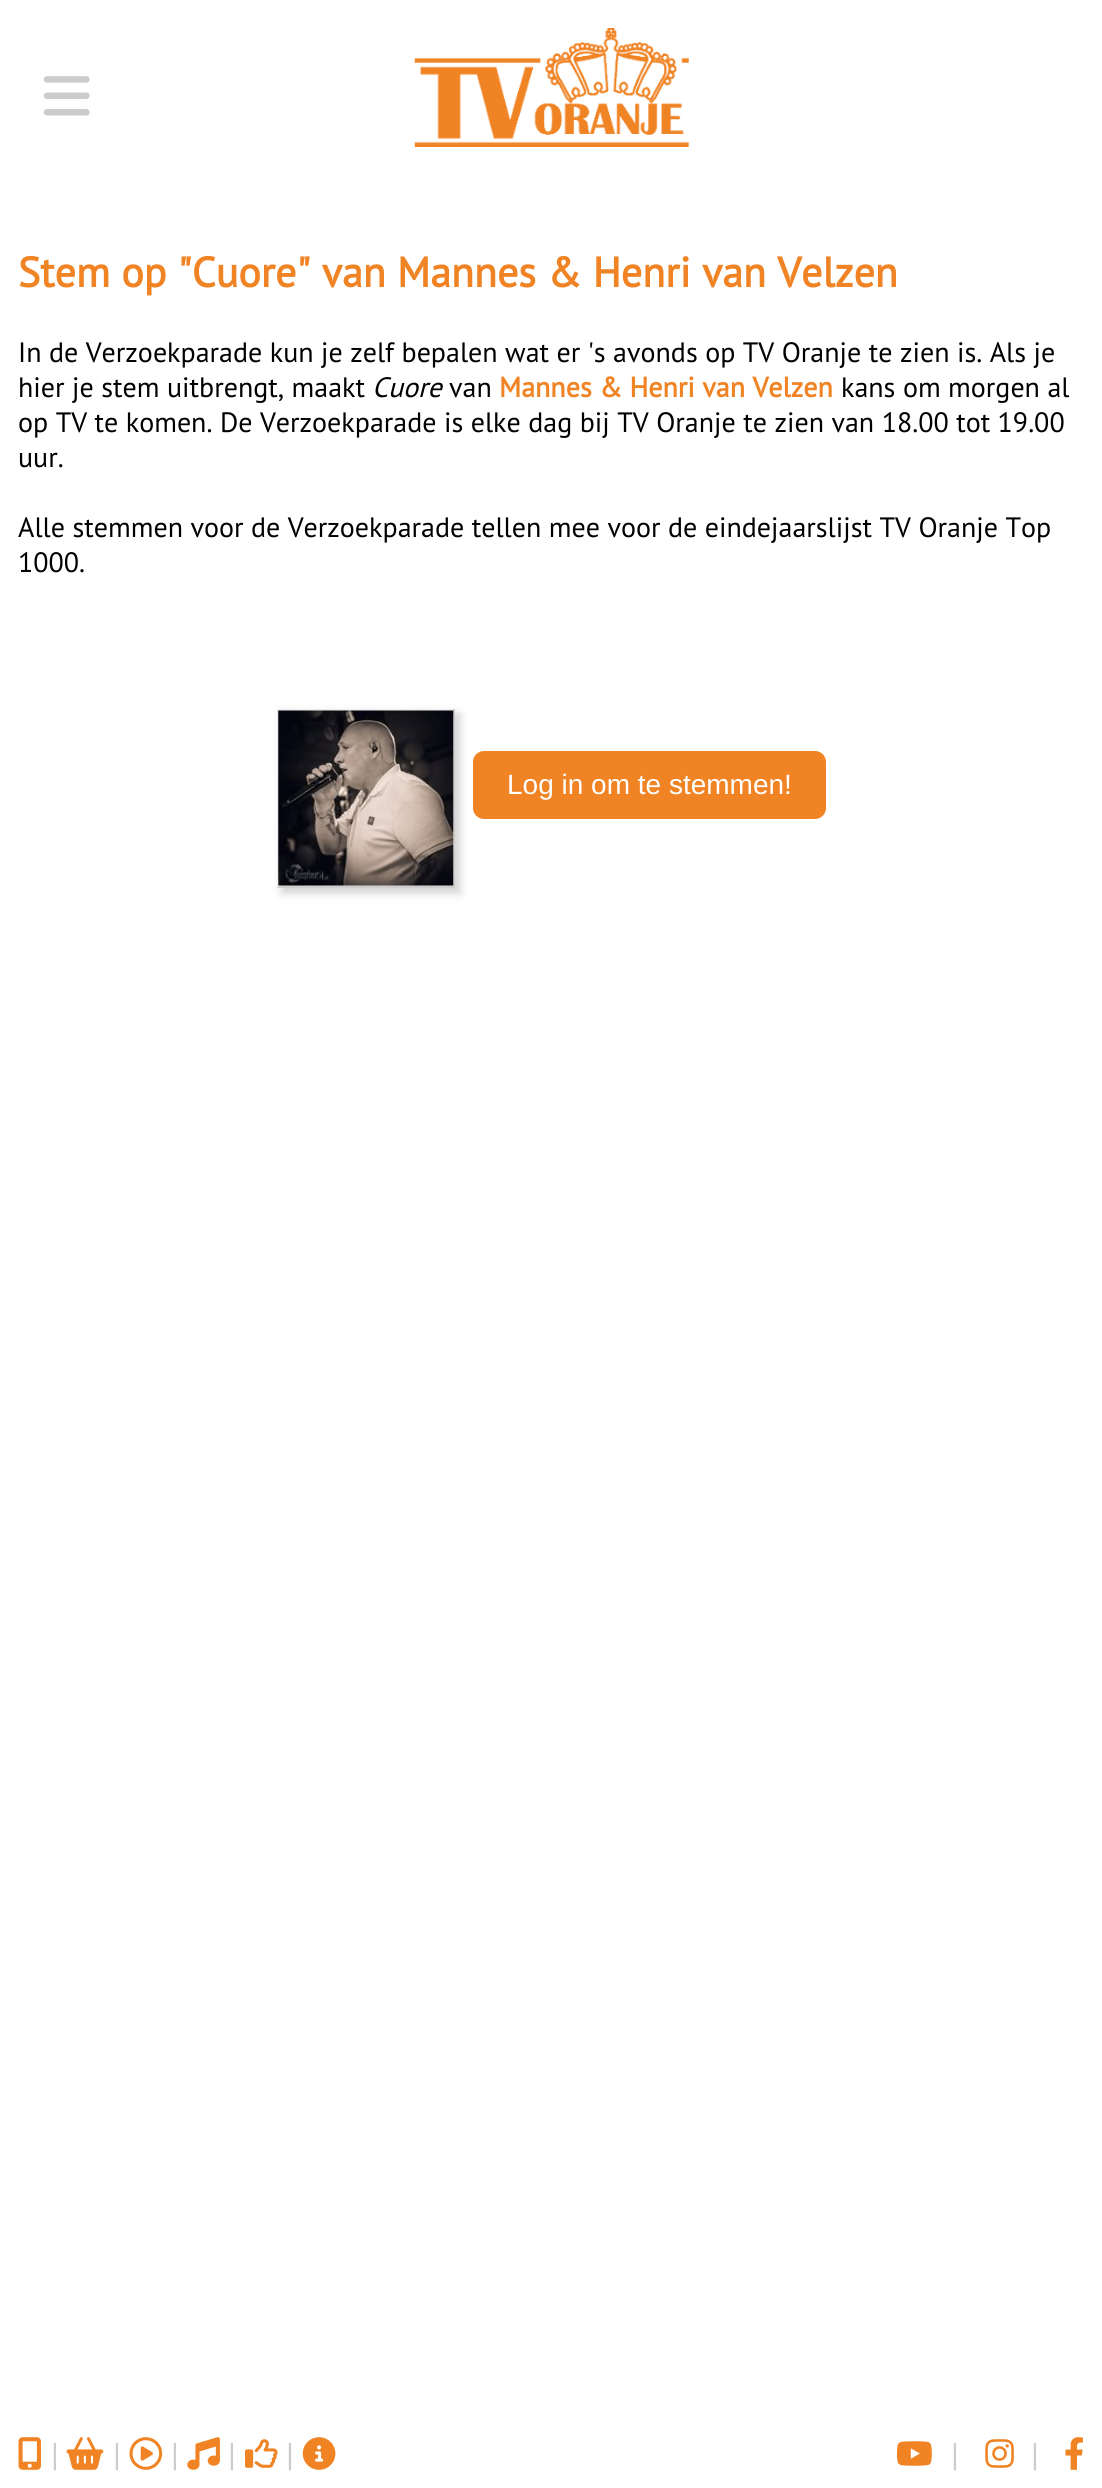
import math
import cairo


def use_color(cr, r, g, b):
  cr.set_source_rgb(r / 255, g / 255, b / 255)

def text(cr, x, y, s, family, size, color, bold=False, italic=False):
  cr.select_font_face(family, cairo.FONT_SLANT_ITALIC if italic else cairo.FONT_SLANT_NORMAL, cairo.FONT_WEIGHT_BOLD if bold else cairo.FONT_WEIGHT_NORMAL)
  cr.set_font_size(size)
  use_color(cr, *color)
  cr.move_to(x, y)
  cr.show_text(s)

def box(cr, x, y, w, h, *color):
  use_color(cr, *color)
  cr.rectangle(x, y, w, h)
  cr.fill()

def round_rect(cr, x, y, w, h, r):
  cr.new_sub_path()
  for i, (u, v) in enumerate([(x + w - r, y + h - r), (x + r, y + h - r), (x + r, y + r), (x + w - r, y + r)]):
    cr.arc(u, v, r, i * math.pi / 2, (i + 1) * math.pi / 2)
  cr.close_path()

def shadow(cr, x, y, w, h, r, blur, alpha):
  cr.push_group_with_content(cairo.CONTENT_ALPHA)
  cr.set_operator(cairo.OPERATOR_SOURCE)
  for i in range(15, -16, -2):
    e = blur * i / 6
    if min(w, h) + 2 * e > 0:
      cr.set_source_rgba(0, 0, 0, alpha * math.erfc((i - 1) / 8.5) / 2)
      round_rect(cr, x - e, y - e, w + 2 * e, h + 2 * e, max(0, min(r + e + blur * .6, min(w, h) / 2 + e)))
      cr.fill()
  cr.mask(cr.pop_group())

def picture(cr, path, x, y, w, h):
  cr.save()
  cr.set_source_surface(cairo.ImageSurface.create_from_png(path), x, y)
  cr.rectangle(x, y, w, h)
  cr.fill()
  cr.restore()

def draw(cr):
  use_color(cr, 255, 255, 255)
  cr.paint()
  picture(cr, "img_01.png", 43, 76, 47, 40)
  picture(cr, "img_02.png", 414, 28, 275, 119)
  use_color(cr, 0, 0, 0)
  shadow(cr, 282, 714, 178, 179, 0, 4.5, 0.18)
  box(cr, 277, 709, 178, 2, 238, 238, 238)
  box(cr, 453, 709, 2, 178, 206, 206, 206)
  box(cr, 277, 886, 178, 2, 206, 206, 206)
  box(cr, 277, 709, 2, 178, 238, 238, 238)
  picture(cr, "img_03.png", 278, 710, 176, 176)
  use_color(cr, 240, 131, 36)
  round_rect(cr, 473, 751, 353, 68, 11)
  cr.fill()
  picture(cr, "img_04.png", 18, 2437, 23, 33)
  picture(cr, "img_05.png", 66, 2437, 38, 33)
  picture(cr, "img_06.png", 129, 2437, 34, 33)
  picture(cr, "img_07.png", 187, 2437, 33, 33)
  picture(cr, "img_08.png", 245, 2439, 33, 29)
  picture(cr, "img_09.png", 302, 2437, 34, 33)
  picture(cr, "img_10.png", 896, 2441, 36, 25)
  picture(cr, "img_11.png", 985, 2439, 29, 29)
  picture(cr, "img_12.png", 1065, 2437, 18, 33)
  text(cr, 18, 287, "Stem op \"Cuore\" van Mannes & Henri van Velzen", "PT Sans", 42, (240, 131, 36), bold=True)
  text(cr, 18, 362, "In de Verzoekparade kun je zelf bepalen wat er 's avonds op TV Oranje te zien is. Als je", "PT Sans", 28, (0, 0, 0))
  text(cr, 18, 397, "hier je stem uitbrengt, maakt", "PT Sans", 28, (0, 0, 0))
  text(cr, 372, 397, "Cuore", "PT Sans", 28, (0, 0, 0), italic=True)
  text(cr, 449, 397, "van", "PT Sans", 28, (0, 0, 0))
  text(cr, 499, 397, "Mannes & Henri van Velzen", "PT Sans", 28, (240, 131, 36), bold=True)
  text(cr, 841, 397, "kans om morgen al", "PT Sans", 28, (0, 0, 0))
  text(cr, 18, 432, "op TV te komen. De Verzoekparade is elke dag bij TV Oranje te zien van 18.00 tot 19.00", "PT Sans", 28, (0, 0, 0))
  text(cr, 18, 467, "uur.", "PT Sans", 28, (0, 0, 0))
  text(cr, 18, 537, "Alle stemmen voor de Verzoekparade tellen mee voor de eindejaarslijst TV Oranje Top", "PT Sans", 28, (0, 0, 0))
  text(cr, 18, 572, "1000.", "PT Sans", 28, (0, 0, 0))
  text(cr, 507, 794, "Log in om te stemmen!", "Liberation Sans", 28, (255, 255, 255))
  text(cr, 51, 2466, "|", "PT Sans", 33, (204, 204, 204))
  text(cr, 113, 2466, "|", "PT Sans", 33, (204, 204, 204))
  text(cr, 171, 2466, "|", "PT Sans", 33, (204, 204, 204))
  text(cr, 228, 2466, "|", "PT Sans", 33, (204, 204, 204))
  text(cr, 286, 2466, "|", "PT Sans", 33, (204, 204, 204))
  text(cr, 951, 2466, "|", "PT Sans", 33, (204, 204, 204))
  text(cr, 1031, 2466, "|", "PT Sans", 33, (204, 204, 204))


surface = cairo.ImageSurface(cairo.FORMAT_RGB24, 1102, 2488)
cr = cairo.Context(surface)
options = cairo.FontOptions()
options.set_hint_metrics(cairo.HINT_METRICS_OFF)
options.set_hint_style(cairo.HINT_STYLE_NONE)
cr.set_font_options(options)
cr.set_miter_limit(4)
draw(cr)
surface.write_to_png("out.png")
